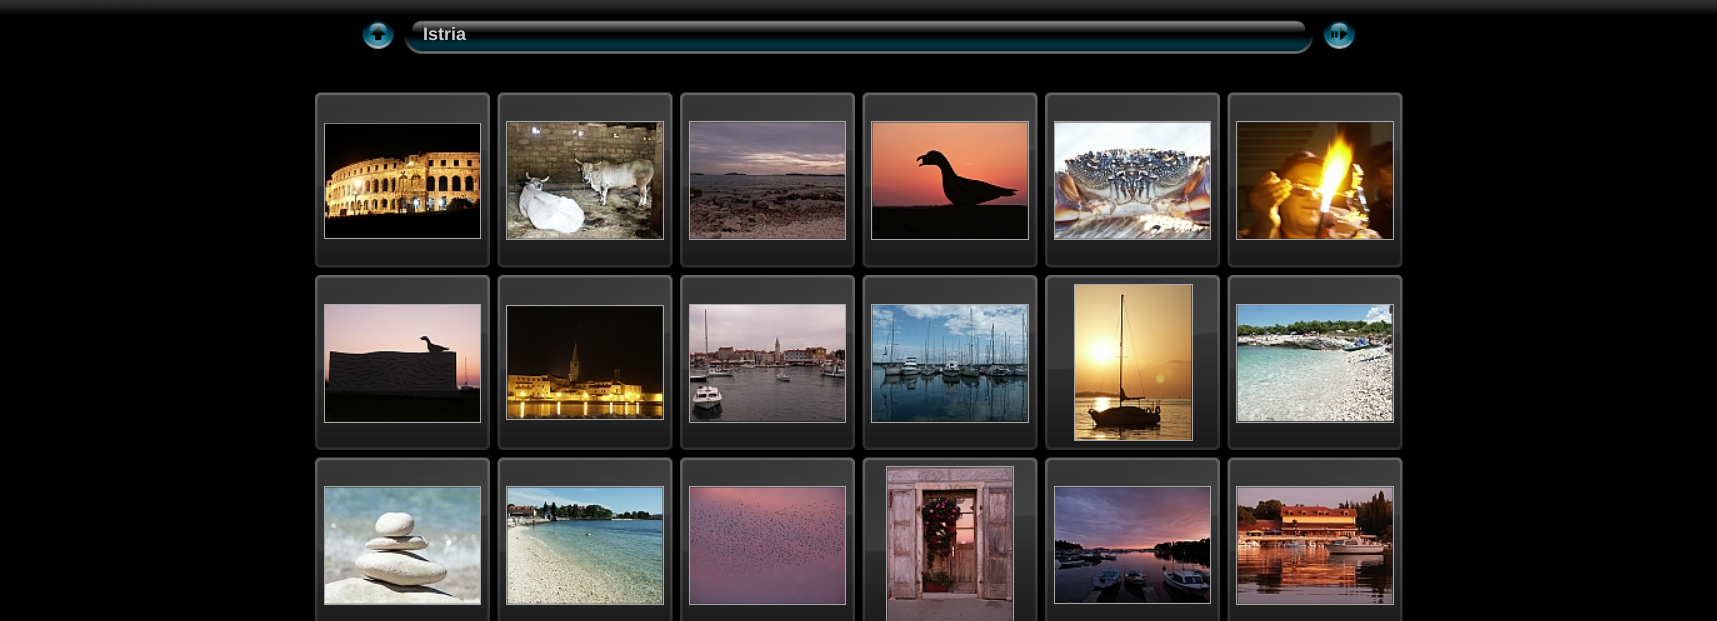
import math
import cairo


def use_color(cr, r, g, b):
  cr.set_source_rgb(r / 255, g / 255, b / 255)

def text(cr, x, y, s, family, size, color, bold=False, italic=False):
  cr.select_font_face(family, cairo.FONT_SLANT_ITALIC if italic else cairo.FONT_SLANT_NORMAL, cairo.FONT_WEIGHT_BOLD if bold else cairo.FONT_WEIGHT_NORMAL)
  cr.set_font_size(size)
  use_color(cr, *color)
  cr.move_to(x, y)
  cr.show_text(s)

def picture(cr, path, x, y, w, h):
  cr.save()
  cr.set_source_surface(cairo.ImageSurface.create_from_png(path), x, y)
  cr.rectangle(x, y, w, h)
  cr.fill()
  cr.restore()

def draw(cr):
  use_color(cr, 0, 0, 0)
  cr.paint()
  picture(cr, "img_01.png", 0, 0, 1717, 15)
  picture(cr, "img_02.png", 362, 20, 32, 29)
  picture(cr, "img_04.png", 422, 20, 873, 34)
  picture(cr, "img_03.png", 404, 21, 19, 33)
  picture(cr, "img_05.png", 1295, 20, 19, 34)
  picture(cr, "img_06.png", 1323, 20, 33, 29)
  picture(cr, "img_07.png", 315, 92, 175, 176)
  cr.rectangle(324.5, 123.5, 156, 115)
  use_color(cr, 170, 170, 170)
  cr.set_line_width(1)
  cr.stroke()
  picture(cr, "img_08.png", 325, 123, 155, 115)
  picture(cr, "img_09.png", 497, 92, 176, 176)
  cr.rectangle(506.5, 121.5, 157, 118)
  cr.stroke()
  picture(cr, "img_10.png", 507, 122, 156, 117)
  picture(cr, "img_11.png", 680, 92, 175, 176)
  cr.rectangle(689.5, 121.5, 156, 118)
  cr.stroke()
  picture(cr, "img_12.png", 690, 122, 155, 117)
  picture(cr, "img_09.png", 862, 92, 176, 176)
  cr.rectangle(871.5, 121.5, 157, 118)
  cr.stroke()
  picture(cr, "img_13.png", 872, 122, 156, 117)
  picture(cr, "img_14.png", 1045, 92, 175, 176)
  cr.rectangle(1054.5, 121.5, 156, 118)
  cr.stroke()
  picture(cr, "img_15.png", 1055, 122, 155, 117)
  picture(cr, "img_09.png", 1227, 92, 176, 176)
  cr.rectangle(1236.5, 121.5, 157, 118)
  cr.stroke()
  picture(cr, "img_16.png", 1237, 122, 156, 117)
  picture(cr, "img_17.png", 315, 275, 175, 175)
  cr.rectangle(324.5, 304.5, 156, 118)
  cr.stroke()
  picture(cr, "img_18.png", 325, 305, 155, 117)
  picture(cr, "img_19.png", 497, 275, 176, 175)
  cr.rectangle(506.5, 305.5, 157, 114)
  cr.stroke()
  picture(cr, "img_20.png", 507, 306, 156, 113)
  picture(cr, "img_21.png", 680, 275, 175, 175)
  cr.rectangle(689.5, 304.5, 156, 118)
  cr.stroke()
  picture(cr, "img_22.png", 690, 305, 155, 117)
  picture(cr, "img_19.png", 862, 275, 176, 175)
  cr.rectangle(871.5, 304.5, 157, 118)
  cr.stroke()
  picture(cr, "img_23.png", 872, 305, 156, 117)
  picture(cr, "img_24.png", 1045, 275, 175, 175)
  cr.rectangle(1074.5, 284.5, 118, 156)
  cr.stroke()
  picture(cr, "img_25.png", 1075, 285, 117, 155)
  picture(cr, "img_19.png", 1227, 275, 176, 175)
  cr.rectangle(1236.5, 304.5, 157, 118)
  cr.stroke()
  picture(cr, "img_26.png", 1237, 305, 156, 117)
  picture(cr, "img_27.png", 315, 457, 175, 164)
  cr.rectangle(324.5, 486.5, 156, 118)
  cr.stroke()
  picture(cr, "img_28.png", 325, 487, 155, 117)
  picture(cr, "img_29.png", 497, 457, 176, 164)
  cr.rectangle(506.5, 486.5, 157, 118)
  cr.stroke()
  picture(cr, "img_30.png", 507, 487, 156, 117)
  picture(cr, "img_31.png", 680, 457, 175, 164)
  cr.rectangle(689.5, 486.5, 156, 118)
  cr.stroke()
  picture(cr, "img_32.png", 690, 487, 155, 117)
  picture(cr, "img_29.png", 862, 457, 176, 164)
  cr.rectangle(886.5, 466.5, 127, 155)
  cr.stroke()
  picture(cr, "img_33.png", 887, 467, 126, 154)
  picture(cr, "img_34.png", 1045, 457, 175, 164)
  cr.rectangle(1054.5, 486.5, 156, 117)
  cr.stroke()
  picture(cr, "img_35.png", 1055, 487, 155, 116)
  picture(cr, "img_29.png", 1227, 457, 176, 164)
  cr.rectangle(1236.5, 486.5, 157, 118)
  cr.stroke()
  picture(cr, "img_36.png", 1237, 487, 156, 117)
  text(cr, 423, 40, "Istria", "Liberation Sans", 18, (204, 204, 204), bold=True)


surface = cairo.ImageSurface(cairo.FORMAT_RGB24, 1717, 621)
cr = cairo.Context(surface)
options = cairo.FontOptions()
options.set_hint_metrics(cairo.HINT_METRICS_OFF)
options.set_hint_style(cairo.HINT_STYLE_NONE)
cr.set_font_options(options)
cr.set_miter_limit(4)
draw(cr)
surface.write_to_png("out.png")
